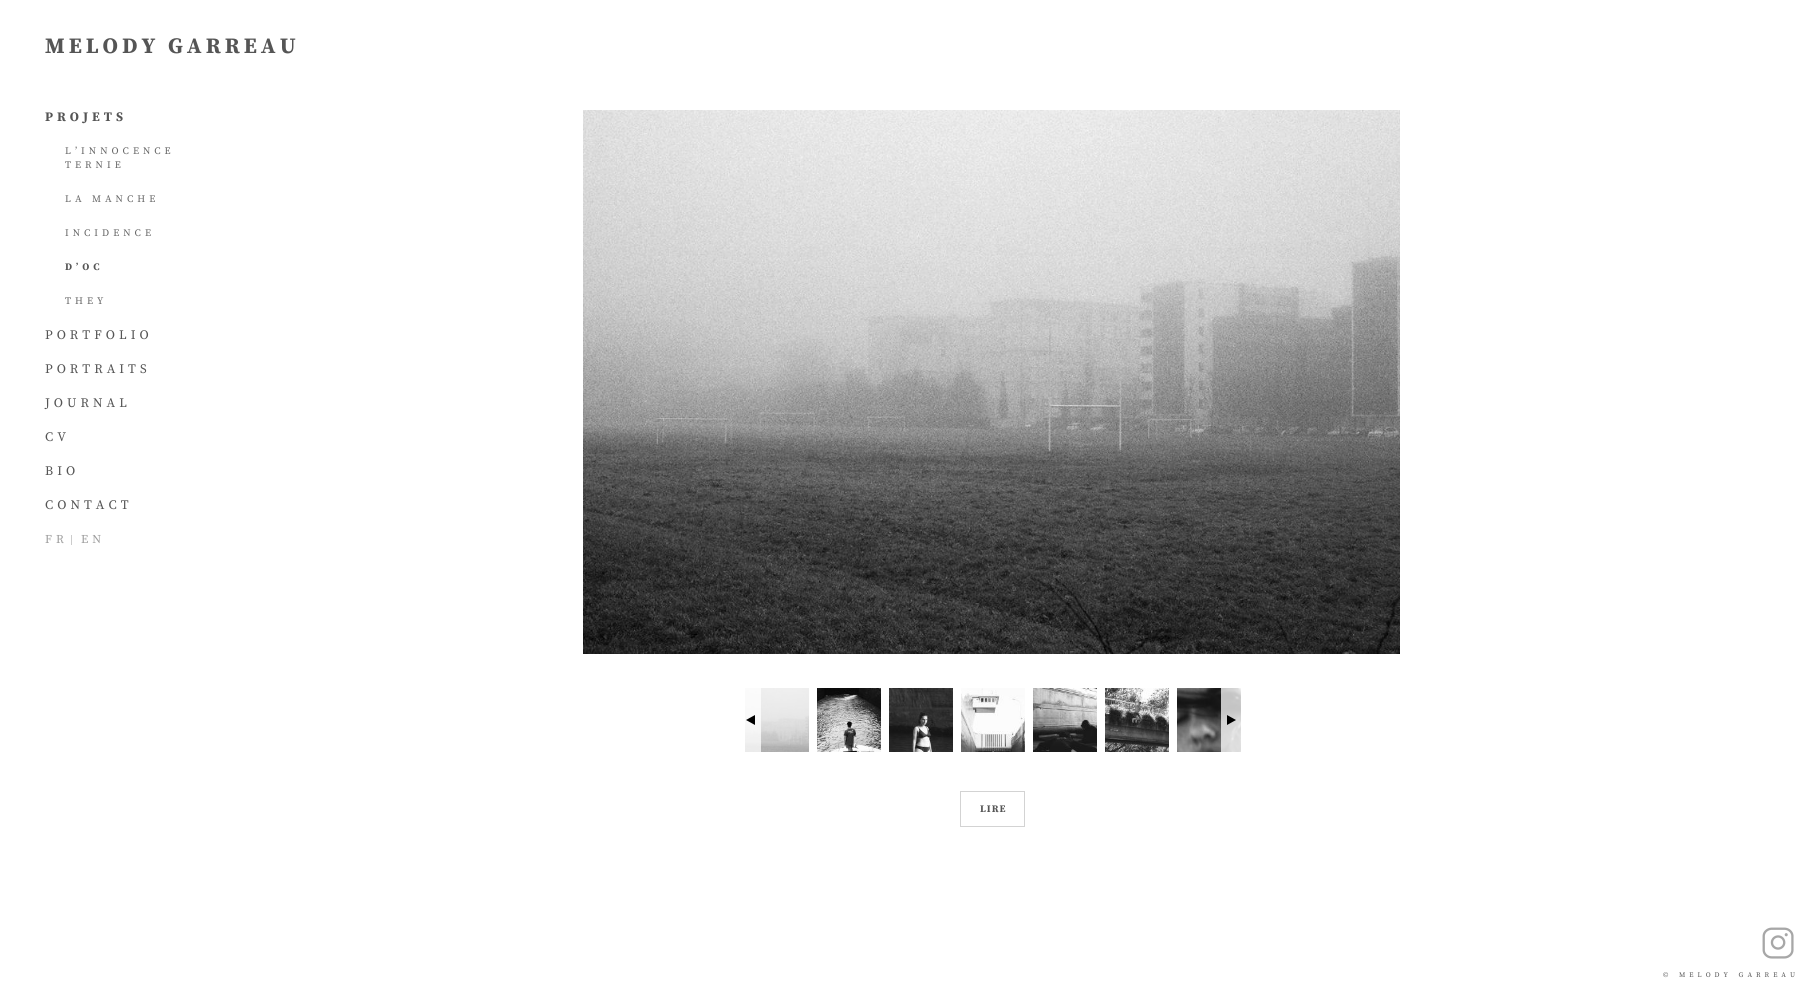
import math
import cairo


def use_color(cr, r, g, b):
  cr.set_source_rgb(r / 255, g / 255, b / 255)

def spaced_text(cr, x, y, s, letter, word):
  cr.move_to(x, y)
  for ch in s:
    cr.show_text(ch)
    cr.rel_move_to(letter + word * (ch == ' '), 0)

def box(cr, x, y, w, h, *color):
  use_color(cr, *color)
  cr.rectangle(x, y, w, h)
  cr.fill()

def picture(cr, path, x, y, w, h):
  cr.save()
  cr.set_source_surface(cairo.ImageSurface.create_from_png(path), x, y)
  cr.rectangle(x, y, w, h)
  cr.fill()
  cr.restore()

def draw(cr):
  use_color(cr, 255, 255, 255)
  cr.paint()
  box(cr, 71, 535, 1, 10, 204, 204, 204)
  picture(cr, "img_01.png", 1762, 927, 32, 32)
  picture(cr, "img_02.png", 583, 110, 817, 544)
  picture(cr, "img_03.png", 745, 688, 64, 64)
  picture(cr, "img_04.png", 817, 688, 64, 64)
  picture(cr, "img_05.png", 889, 688, 64, 64)
  picture(cr, "img_06.png", 961, 688, 64, 64)
  picture(cr, "img_07.png", 1033, 688, 64, 64)
  picture(cr, "img_08.png", 1105, 688, 64, 64)
  picture(cr, "img_09.png", 1177, 688, 64, 64)
  cr.set_source_rgba(1, 1, 1, 0.75)
  cr.rectangle(745, 688, 16, 64)
  cr.fill()
  picture(cr, "img_10.png", 746, 715, 9, 10)
  cr.rectangle(1221, 688, 20, 64)
  cr.fill()
  picture(cr, "img_11.png", 1227, 715, 9, 10)
  cr.rectangle(960.5, 791.5, 64, 35)
  use_color(cr, 211, 211, 211)
  cr.set_line_width(1)
  cr.stroke()
  cr.select_font_face("Source Serif Pro", cairo.FONT_SLANT_NORMAL, cairo.FONT_WEIGHT_BOLD)
  cr.set_font_size(22)
  use_color(cr, 85, 85, 85)
  spaced_text(cr, 45, 53, "MELODY GARREAU", 4, 0)
  cr.set_font_size(13)
  spaced_text(cr, 45, 121, "PROJETS", 4, 0)
  cr.select_font_face("Source Serif Pro")
  cr.set_font_size(10)
  use_color(cr, 102, 102, 102)
  spaced_text(cr, 65, 154, "L’INNOCENCE", 4, 0)
  spaced_text(cr, 65, 168, "TERNIE", 4, 0)
  spaced_text(cr, 65, 202, "LA MANCHE", 4, 0)
  spaced_text(cr, 65, 236, "INCIDENCE", 4, 0)
  cr.select_font_face("Source Serif Pro", cairo.FONT_SLANT_NORMAL, cairo.FONT_WEIGHT_BOLD)
  use_color(cr, 85, 85, 85)
  spaced_text(cr, 65, 270, "D’OC", 4, 0)
  cr.select_font_face("Source Serif Pro")
  use_color(cr, 102, 102, 102)
  spaced_text(cr, 65, 304, "THEY", 4, 0)
  cr.set_font_size(13)
  use_color(cr, 85, 85, 85)
  spaced_text(cr, 45, 339, "PORTFOLIO", 4, 0)
  spaced_text(cr, 45, 373, "PORTRAITS", 4, 0)
  spaced_text(cr, 45, 407, "JOURNAL", 4, 0)
  spaced_text(cr, 45, 441, "CV", 4, 0)
  spaced_text(cr, 45, 475, "BIO", 4, 0)
  spaced_text(cr, 45, 509, "CONTACT", 4, 0)
  cr.set_font_size(12)
  use_color(cr, 157, 157, 157)
  spaced_text(cr, 45, 543, "FR", 4, 0)
  spaced_text(cr, 81, 543, "EN", 4, 0)
  cr.set_font_size(7)
  use_color(cr, 85, 85, 85)
  spaced_text(cr, 1663, 977, "© MELODY GARREAU", 4, 1)
  cr.select_font_face("Source Serif Pro", cairo.FONT_SLANT_NORMAL, cairo.FONT_WEIGHT_BOLD)
  cr.set_font_size(10)
  spaced_text(cr, 980, 812, "LIRE", 1, 0)


surface = cairo.ImageSurface(cairo.FORMAT_RGB24, 1819, 989)
cr = cairo.Context(surface)
options = cairo.FontOptions()
options.set_hint_metrics(cairo.HINT_METRICS_OFF)
options.set_hint_style(cairo.HINT_STYLE_NONE)
cr.set_font_options(options)
cr.set_miter_limit(4)
draw(cr)
surface.write_to_png("out.png")
